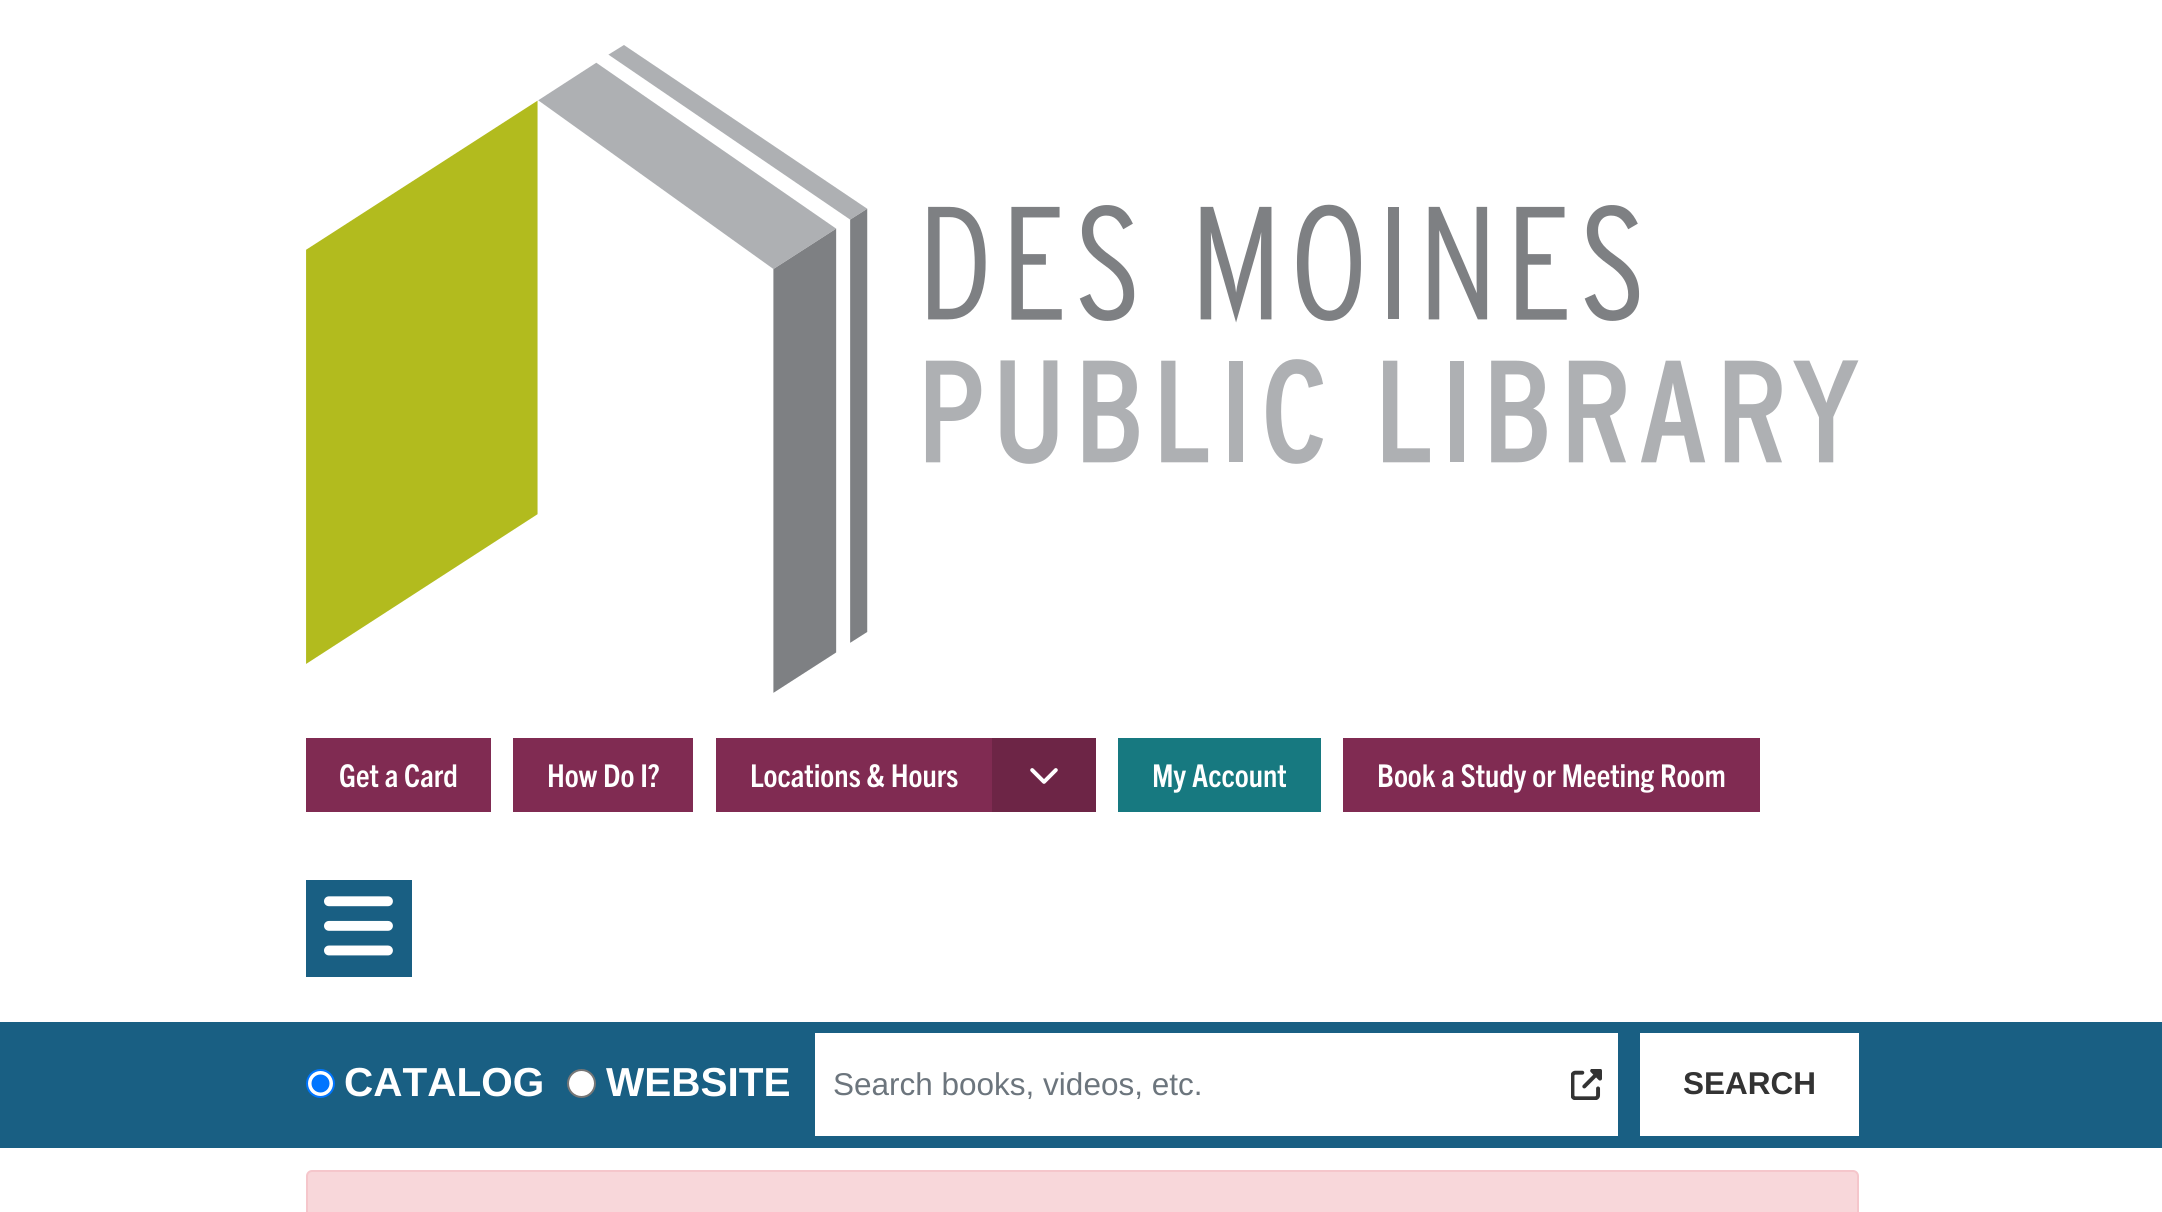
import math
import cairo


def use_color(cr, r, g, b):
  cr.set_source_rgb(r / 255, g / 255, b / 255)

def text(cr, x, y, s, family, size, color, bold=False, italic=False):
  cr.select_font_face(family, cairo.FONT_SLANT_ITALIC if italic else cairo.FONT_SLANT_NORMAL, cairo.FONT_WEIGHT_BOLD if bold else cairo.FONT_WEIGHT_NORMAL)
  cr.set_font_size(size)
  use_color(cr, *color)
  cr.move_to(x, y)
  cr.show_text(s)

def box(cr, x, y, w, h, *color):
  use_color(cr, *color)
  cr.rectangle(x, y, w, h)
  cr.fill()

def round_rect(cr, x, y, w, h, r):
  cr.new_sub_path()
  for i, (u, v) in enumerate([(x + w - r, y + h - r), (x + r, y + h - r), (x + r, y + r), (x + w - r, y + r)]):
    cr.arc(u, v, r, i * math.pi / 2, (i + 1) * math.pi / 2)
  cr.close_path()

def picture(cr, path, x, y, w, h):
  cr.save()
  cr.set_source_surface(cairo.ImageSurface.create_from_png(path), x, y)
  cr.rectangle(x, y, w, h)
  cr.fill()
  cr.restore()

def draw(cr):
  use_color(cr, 255, 255, 255)
  cr.paint()
  picture(cr, "img_01.png", 306, 45, 1553, 648)
  box(cr, 306, 738, 185, 74, 128, 43, 82)
  box(cr, 513, 738, 180, 74, 128, 43, 82)
  box(cr, 716, 738, 276, 74, 128, 43, 82)
  box(cr, 992, 738, 104, 74, 109, 37, 70)
  picture(cr, "img_02.png", 1030, 768, 28, 16)
  box(cr, 1118, 738, 203, 74, 23, 121, 128)
  box(cr, 1343, 738, 417, 74, 128, 43, 82)
  box(cr, 306, 880, 106, 97, 25, 95, 131)
  picture(cr, "img_03.png", 324, 896, 69, 60)
  box(cr, 0, 1022, 2162, 126, 25, 95, 131)
  use_color(cr, 255, 255, 255)
  cr.arc(320.5, 1083.5, 13.5, 0, 2 * math.pi)
  cr.fill_preserve()
  use_color(cr, 0, 117, 255)
  cr.stroke()
  cr.arc(320.5, 1083.5, 9, 0, 2 * math.pi)
  cr.fill()
  use_color(cr, 255, 255, 255)
  cr.arc(581.5, 1083.5, 13.5, 0, 2 * math.pi)
  cr.fill_preserve()
  use_color(cr, 118, 118, 118)
  cr.stroke()
  use_color(cr, 255, 255, 255)
  cr.rectangle(816, 1034, 801, 101)
  cr.fill_preserve()
  cr.stroke()
  picture(cr, "img_04.png", 1571, 1069, 31, 31)
  box(cr, 1640, 1033, 219, 103, 255, 255, 255)
  use_color(cr, 248, 215, 218)
  round_rect(cr, 307, 1171, 1551, 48, 5)
  cr.fill_preserve()
  use_color(cr, 245, 198, 203)
  cr.stroke()
  text(cr, 339, 787, "Get a Card", "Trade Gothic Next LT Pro", 31.5, (255, 255, 255), bold=True)
  text(cr, 547, 787, "How Do I?", "Trade Gothic Next LT Pro", 31.5, (255, 255, 255), bold=True)
  text(cr, 750, 787, "Locations & Hours", "Trade Gothic Next LT Pro", 31.5, (255, 255, 255), bold=True)
  text(cr, 1152, 787, "My Account", "Trade Gothic Next LT Pro", 31.5, (255, 255, 255), bold=True)
  text(cr, 1377, 787, "Book a Study or Meeting Room", "Trade Gothic Next LT Pro", 31.5, (255, 255, 255), bold=True)
  text(cr, 344, 1096, "CATALOG", "Liberation Sans", 40.5, (255, 255, 255), bold=True)
  text(cr, 606, 1096, "WEBSITE", "Liberation Sans", 40.5, (255, 255, 255), bold=True)
  text(cr, 833, 1095, "Search books, videos, etc.", "Liberation Sans", 31.5, (108, 117, 125))
  text(cr, 1683, 1094, "SEARCH", "Liberation Sans", 31.5, (51, 51, 51), bold=True)


surface = cairo.ImageSurface(cairo.FORMAT_RGB24, 2162, 1212)
cr = cairo.Context(surface)
options = cairo.FontOptions()
options.set_hint_metrics(cairo.HINT_METRICS_OFF)
options.set_hint_style(cairo.HINT_STYLE_NONE)
cr.set_font_options(options)
cr.set_miter_limit(4)
draw(cr)
surface.write_to_png("out.png")
